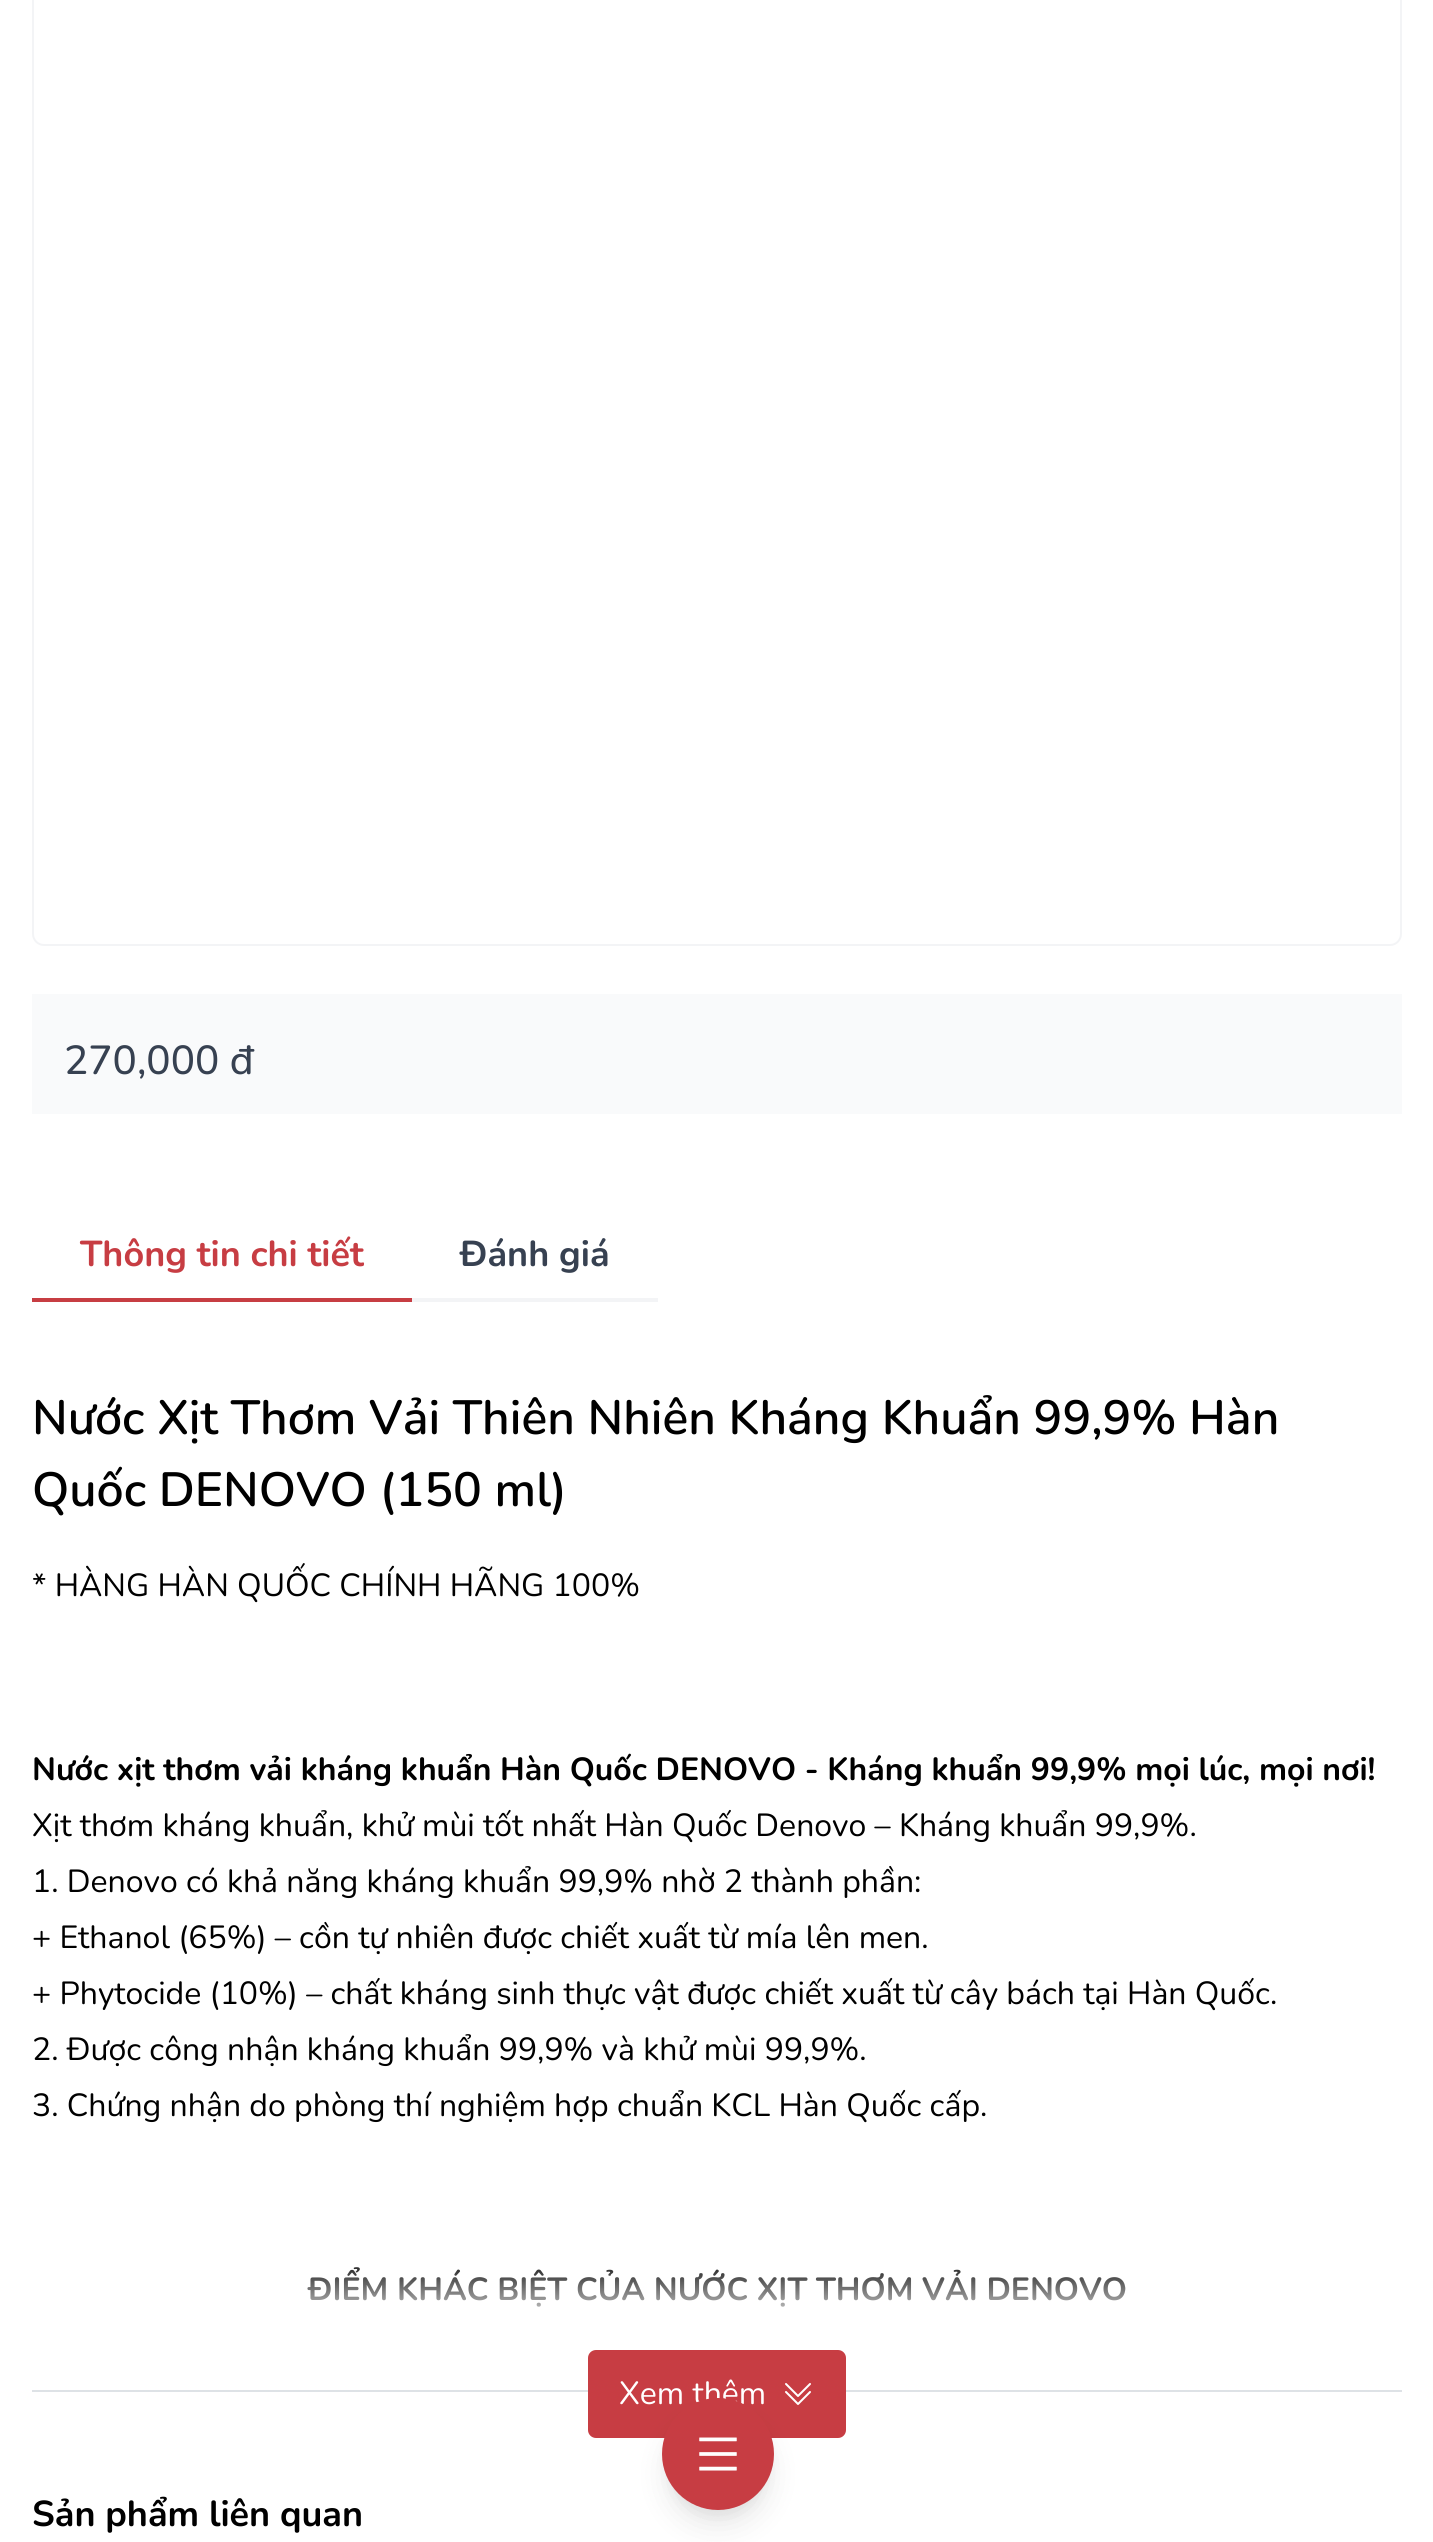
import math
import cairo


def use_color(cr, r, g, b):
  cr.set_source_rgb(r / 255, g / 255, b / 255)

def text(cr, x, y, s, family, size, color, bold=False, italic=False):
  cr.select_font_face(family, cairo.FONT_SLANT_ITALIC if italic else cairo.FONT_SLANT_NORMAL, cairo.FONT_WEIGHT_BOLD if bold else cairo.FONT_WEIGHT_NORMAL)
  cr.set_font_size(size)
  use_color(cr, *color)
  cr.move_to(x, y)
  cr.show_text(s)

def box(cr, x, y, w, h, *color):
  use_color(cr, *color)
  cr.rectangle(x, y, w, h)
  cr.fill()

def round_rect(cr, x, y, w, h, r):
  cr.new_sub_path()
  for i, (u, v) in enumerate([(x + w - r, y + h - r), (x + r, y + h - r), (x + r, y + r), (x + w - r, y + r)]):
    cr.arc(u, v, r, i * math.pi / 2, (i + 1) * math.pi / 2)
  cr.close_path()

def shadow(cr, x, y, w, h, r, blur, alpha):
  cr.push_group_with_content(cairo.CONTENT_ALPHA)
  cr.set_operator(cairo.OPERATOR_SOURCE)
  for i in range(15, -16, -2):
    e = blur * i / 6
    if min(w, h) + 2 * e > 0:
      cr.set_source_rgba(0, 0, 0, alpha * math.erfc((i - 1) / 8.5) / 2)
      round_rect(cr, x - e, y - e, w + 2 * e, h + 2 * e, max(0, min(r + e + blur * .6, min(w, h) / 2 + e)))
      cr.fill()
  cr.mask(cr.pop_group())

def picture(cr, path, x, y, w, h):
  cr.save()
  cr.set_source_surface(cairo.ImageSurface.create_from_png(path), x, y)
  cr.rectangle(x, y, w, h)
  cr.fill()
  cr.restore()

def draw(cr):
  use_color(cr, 255, 255, 255)
  cr.paint()
  round_rect(cr, 33, -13, 1368, 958, 11)
  use_color(cr, 243, 244, 246)
  cr.stroke()
  box(cr, 32, 994, 1370, 120, 249, 250, 251)
  box(cr, 32, 1298, 380, 4, 199, 61, 67)
  box(cr, 412, 1298, 246, 4, 243, 244, 246)
  box(cr, 32, 2390, 1370, 2, 222, 226, 230)
  use_color(cr, 199, 61, 67)
  round_rect(cr, 588, 2350, 258, 88, 8)
  cr.fill()
  picture(cr, "img_01.png", 785, 2383, 26, 22)
  use_color(cr, 0, 0, 0)
  shadow(cr, 666, 2410, 104, 104, 52, 6, 0.05)
  shadow(cr, 668, 2424, 100, 100, 50, 15, 0.1)
  text(cr, 64, 1074, "270,000 đ", "Nunito Medium", 40.5, (55, 65, 81))
  text(cr, 80, 1266, "Thông tin chi tiết", "Nunito", 36, (199, 61, 67), bold=True)
  text(cr, 460, 1266, "Đánh giá", "Nunito", 36, (55, 65, 81), bold=True)
  text(cr, 32, 1434, "Nước Xịt Thơm Vải Thiên Nhiên Kháng Khuẩn 99,9% Hàn", "Nunito SemiBold", 48, (0, 0, 0))
  text(cr, 32, 1506, "Quốc DENOVO (150 ml)", "Nunito SemiBold", 48, (0, 0, 0))
  text(cr, 32, 1596, "* HÀNG HÀN QUỐC CHÍNH HÃNG 100%", "Nunito", 32, (0, 0, 0))
  text(cr, 32, 1780, "Nước xịt thơm vải kháng khuẩn Hàn Quốc DENOVO - Kháng khuẩn 99,9% mọi lúc, mọi nơi!", "Nunito", 32, (0, 0, 0), bold=True)
  text(cr, 32, 1836, "Xịt thơm kháng khuẩn, khử mùi tốt nhất Hàn Quốc Denovo – Kháng khuẩn 99,9%.", "Nunito", 32, (0, 0, 0))
  text(cr, 32, 1892, "1. Denovo có khả năng kháng khuẩn 99,9% nhờ 2 thành phần:", "Nunito", 32, (0, 0, 0))
  text(cr, 32, 1948, "+ Ethanol (65%) – cồn tự nhiên được chiết xuất từ mía lên men.", "Nunito", 32, (0, 0, 0))
  text(cr, 32, 2004, "+ Phytocide (10%) – chất kháng sinh thực vật được chiết xuất từ cây bách tại Hàn Quốc.", "Nunito", 32, (0, 0, 0))
  text(cr, 32, 2060, "2. Được công nhận kháng khuẩn 99,9% và khử mùi 99,9%.", "Nunito", 32, (0, 0, 0))
  text(cr, 32, 2116, "3. Chứng nhận do phòng thí nghiệm hợp chuẩn KCL Hàn Quốc cấp.", "Nunito", 32, (0, 0, 0))
  text(cr, 308, 2300, "ĐIỂM KHÁC BIỆT CỦA NƯỚC XỊT THƠM VẢI DENOVO", "Nunito", 32, (0, 0, 0), bold=True)
  gradient = cairo.LinearGradient(717, 2254, 717, 2350)
  gradient.add_color_stop_rgba(0, 1, 1, 1, 0)
  gradient.add_color_stop_rgba(0.8, 1, 1, 1, 1)
  cr.set_source(gradient)
  cr.rectangle(307, 2267, 818, 40)
  cr.fill()
  text(cr, 619, 2404, "Xem thêm", "Nunito", 32, (255, 255, 255))
  text(cr, 32, 2526, "Sản phẩm liên quan", "Nunito", 36, (0, 0, 0), bold=True)
  use_color(cr, 199, 61, 67)
  cr.new_path()
  cr.arc(718, 2454, 56, 0, 2 * math.pi)
  cr.fill()
  picture(cr, "img_02.png", 699, 2437, 38, 34)


surface = cairo.ImageSurface(cairo.FORMAT_RGB24, 1433, 2542)
cr = cairo.Context(surface)
options = cairo.FontOptions()
options.set_hint_metrics(cairo.HINT_METRICS_OFF)
options.set_hint_style(cairo.HINT_STYLE_NONE)
cr.set_font_options(options)
cr.set_miter_limit(4)
draw(cr)
surface.write_to_png("out.png")
